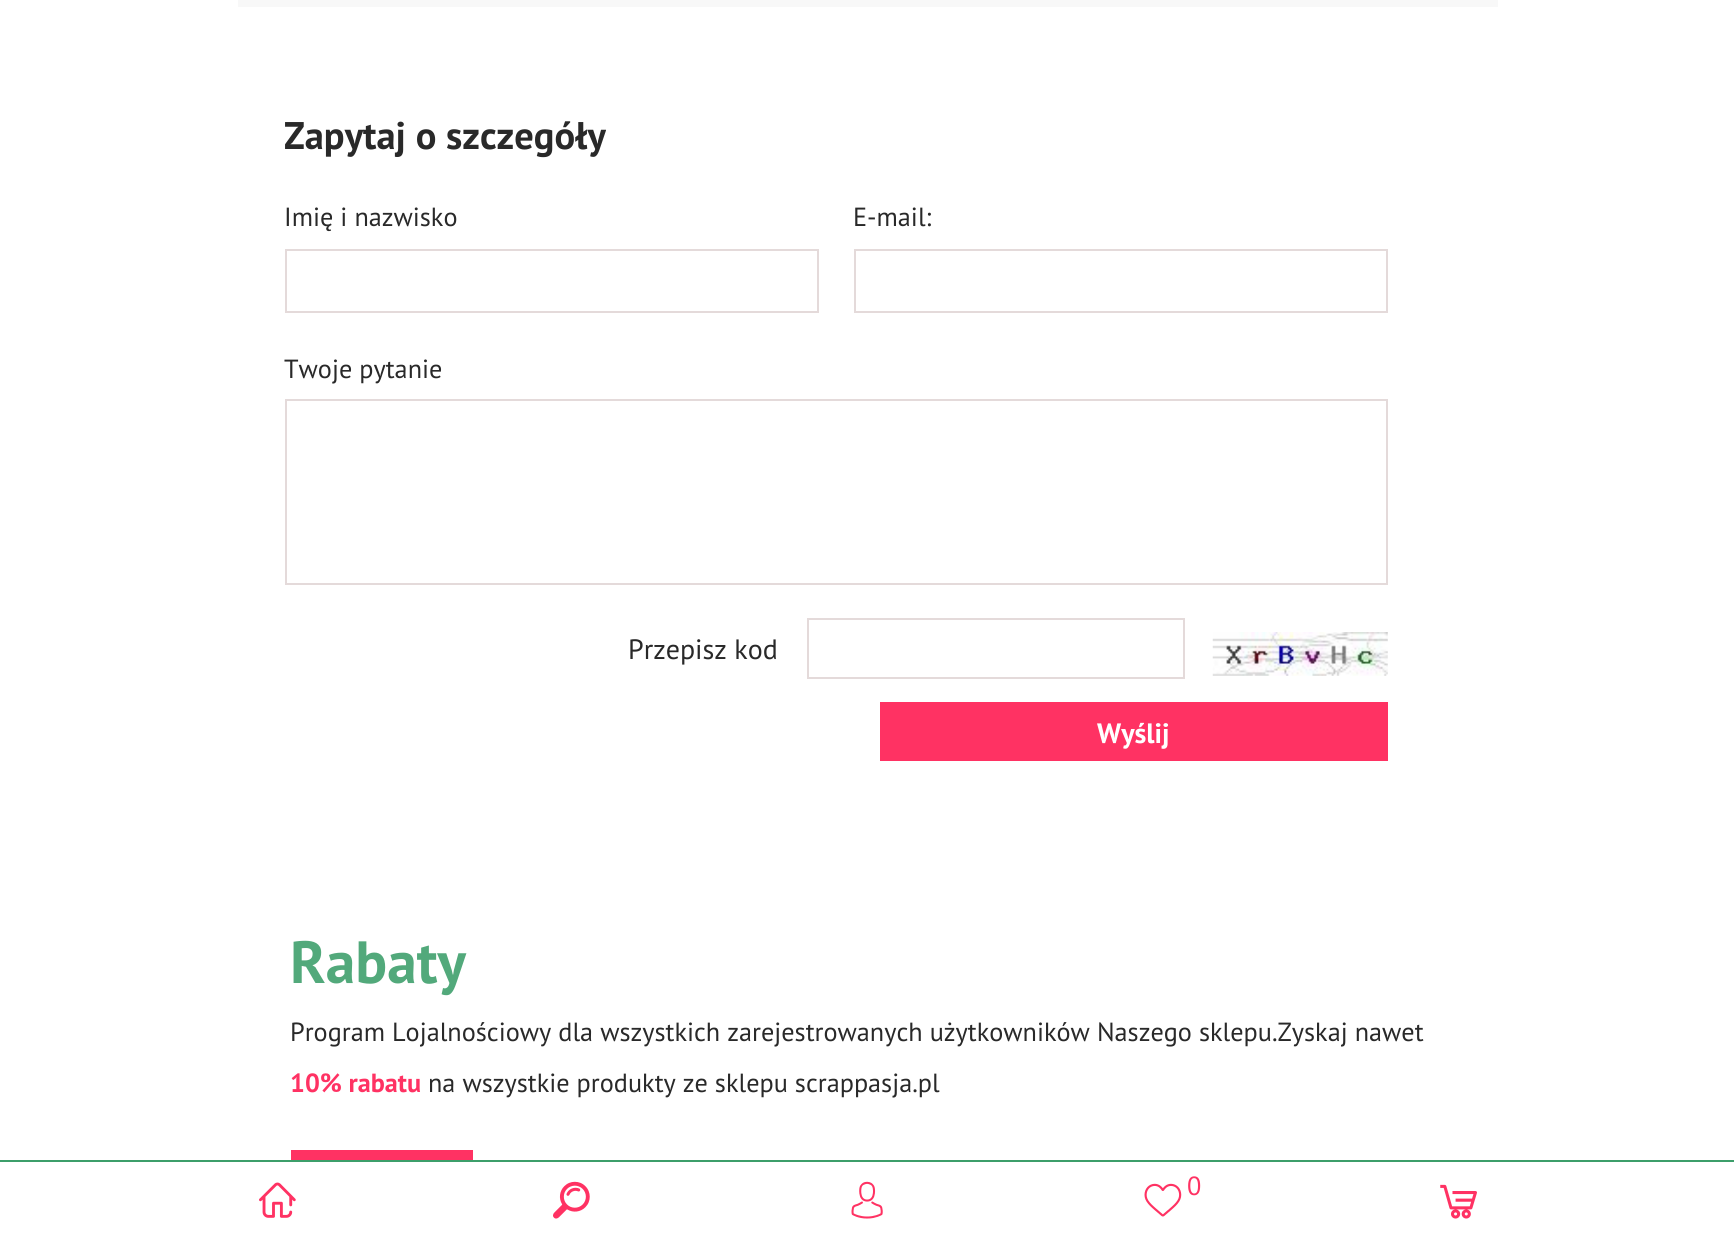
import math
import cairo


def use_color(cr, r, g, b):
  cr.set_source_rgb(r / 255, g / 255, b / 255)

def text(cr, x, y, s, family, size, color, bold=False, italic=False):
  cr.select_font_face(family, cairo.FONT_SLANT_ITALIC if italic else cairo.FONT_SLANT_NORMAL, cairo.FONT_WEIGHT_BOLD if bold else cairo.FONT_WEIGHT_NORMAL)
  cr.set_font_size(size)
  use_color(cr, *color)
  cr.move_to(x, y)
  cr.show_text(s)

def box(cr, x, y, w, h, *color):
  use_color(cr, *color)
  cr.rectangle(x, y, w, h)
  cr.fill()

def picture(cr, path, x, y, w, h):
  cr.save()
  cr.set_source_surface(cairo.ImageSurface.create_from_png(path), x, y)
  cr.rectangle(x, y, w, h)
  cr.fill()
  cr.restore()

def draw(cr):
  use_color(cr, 255, 255, 255)
  cr.paint()
  box(cr, 238, 0, 1260, 7, 248, 248, 248)
  cr.rectangle(286, 250, 532, 62)
  use_color(cr, 228, 218, 218)
  cr.stroke()
  cr.rectangle(855, 250, 532, 62)
  cr.stroke()
  cr.rectangle(286, 400, 1101, 184)
  cr.stroke()
  cr.rectangle(808, 619, 376, 59)
  cr.stroke()
  picture(cr, "img_01.png", 1212, 632, 176, 44)
  box(cr, 880, 702, 508, 59, 255, 50, 99)
  box(cr, 291, 1150, 182, 10, 255, 50, 99)
  box(cr, 0, 1160, 1734, 2, 60, 158, 106)
  picture(cr, "img_02.png", 259, 1182, 37, 36)
  picture(cr, "img_03.png", 553, 1181, 37, 38)
  picture(cr, "img_04.png", 851, 1181, 32, 38)
  picture(cr, "img_05.png", 1144, 1183, 38, 34)
  picture(cr, "img_06.png", 1440, 1184, 37, 35)
  text(cr, 284, 149, "Zapytaj o szczegóły", "PT Sans", 38.5, (41, 41, 41), bold=True)
  text(cr, 284, 226, "Imię i nazwisko", "PT Sans", 26.25, (41, 41, 41))
  text(cr, 853, 226, "E-mail:", "PT Sans", 26.25, (41, 41, 41))
  text(cr, 284, 378, "Twoje pytanie", "PT Sans", 26.25, (41, 41, 41))
  text(cr, 628, 659, "Przepisz kod", "PT Sans", 28, (41, 41, 41))
  text(cr, 1097, 743, "Wyślij", "PT Sans", 28, (255, 255, 255), bold=True)
  text(cr, 290, 983, "Rabaty", "PT Sans", 59.5, (82, 169, 123), bold=True)
  text(cr, 290, 1041, "Program Lojalnościowy dla wszystkich zarejestrowanych użytkowników Naszego sklepu.Zyskaj nawet", "PT Sans", 26.25, (41, 41, 41))
  text(cr, 290, 1092, "10% rabatu", "PT Sans", 26.25, (255, 50, 99), bold=True)
  text(cr, 428, 1092, "na wszystkie produkty ze sklepu scrappasja.pl", "PT Sans", 26.25, (41, 41, 41))
  text(cr, 1187, 1195, "0", "PT Sans", 26.25, (255, 50, 99))


surface = cairo.ImageSurface(cairo.FORMAT_RGB24, 1734, 1239)
cr = cairo.Context(surface)
options = cairo.FontOptions()
options.set_hint_metrics(cairo.HINT_METRICS_OFF)
options.set_hint_style(cairo.HINT_STYLE_NONE)
cr.set_font_options(options)
cr.set_miter_limit(4)
draw(cr)
surface.write_to_png("out.png")
